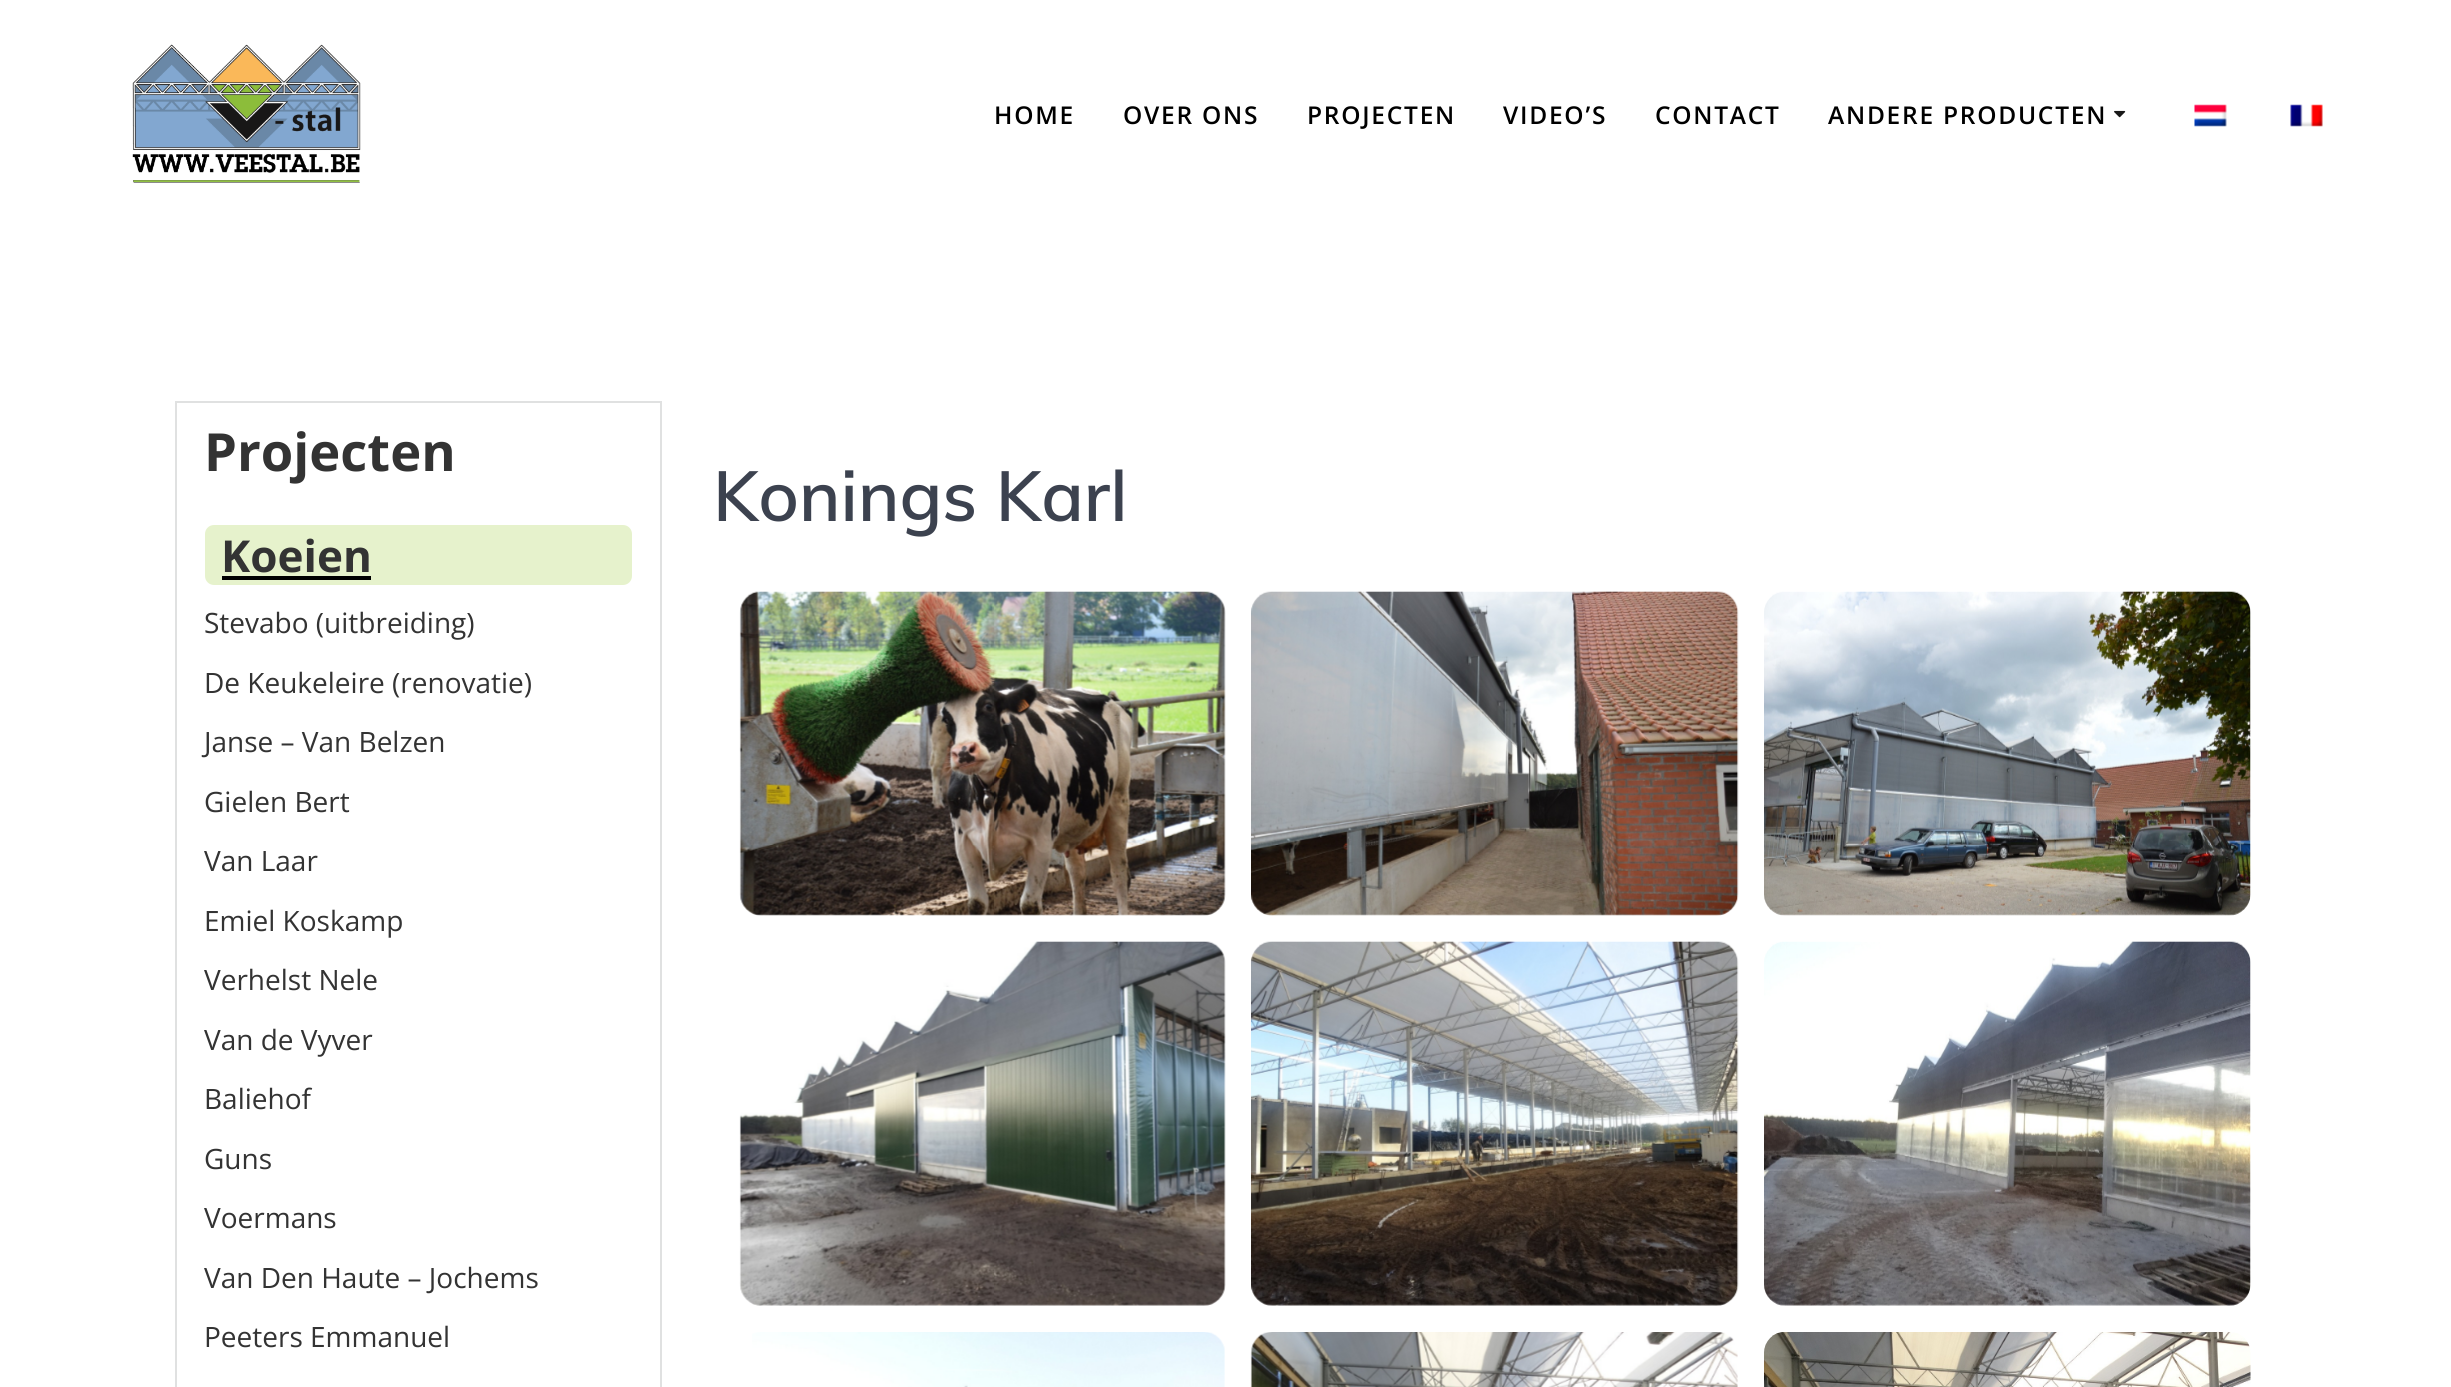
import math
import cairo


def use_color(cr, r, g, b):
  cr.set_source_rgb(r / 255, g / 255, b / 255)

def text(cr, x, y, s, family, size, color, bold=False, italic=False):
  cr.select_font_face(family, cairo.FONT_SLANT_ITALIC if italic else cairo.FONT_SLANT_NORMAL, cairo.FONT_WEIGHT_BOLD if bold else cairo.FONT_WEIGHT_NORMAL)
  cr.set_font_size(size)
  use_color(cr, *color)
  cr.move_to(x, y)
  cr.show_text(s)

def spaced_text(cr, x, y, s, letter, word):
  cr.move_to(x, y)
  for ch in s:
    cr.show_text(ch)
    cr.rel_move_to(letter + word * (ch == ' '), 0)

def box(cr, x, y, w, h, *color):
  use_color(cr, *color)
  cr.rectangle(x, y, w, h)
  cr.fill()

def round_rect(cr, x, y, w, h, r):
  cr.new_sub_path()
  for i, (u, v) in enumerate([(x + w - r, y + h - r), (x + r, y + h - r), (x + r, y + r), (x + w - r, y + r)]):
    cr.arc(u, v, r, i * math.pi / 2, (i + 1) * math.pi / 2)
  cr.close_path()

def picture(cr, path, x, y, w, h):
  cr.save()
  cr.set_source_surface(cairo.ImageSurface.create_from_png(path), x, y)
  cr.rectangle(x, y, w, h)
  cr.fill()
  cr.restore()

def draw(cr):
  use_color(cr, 255, 255, 255)
  cr.paint()
  picture(cr, "img_01.png", 132, 44, 229, 139)
  picture(cr, "img_02.png", 2114, 110, 12, 8)
  picture(cr, "img_03.png", 2194, 104, 33, 23)
  picture(cr, "img_04.png", 2290, 104, 33, 23)
  cr.rectangle(176, 402, 485, 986)
  use_color(cr, 224, 225, 225)
  cr.stroke()
  use_color(cr, 230, 242, 204)
  round_rect(cr, 205, 525, 427, 60, 9)
  cr.fill()
  box(cr, 222, 576, 149, 4, 0, 0, 0)
  picture(cr, "img_05.png", 739, 591, 487, 325)
  picture(cr, "img_06.png", 739, 941, 487, 365)
  picture(cr, "img_07.png", 752, 1332, 473, 55)
  picture(cr, "img_08.png", 1251, 591, 488, 325)
  picture(cr, "img_09.png", 1251, 941, 488, 365)
  picture(cr, "img_10.png", 1250, 1332, 488, 55)
  picture(cr, "img_11.png", 1764, 591, 487, 325)
  picture(cr, "img_12.png", 1764, 941, 487, 365)
  picture(cr, "img_13.png", 1764, 1332, 487, 55)
  cr.select_font_face("Open Sans SemiBold")
  cr.set_font_size(24.5)
  spaced_text(cr, 994, 124, "HOME", 1.75, 0)
  spaced_text(cr, 1123, 124, "OVER ONS", 1.75, 0)
  spaced_text(cr, 1307, 124, "PROJECTEN", 1.75, 0)
  spaced_text(cr, 1503, 124, "VIDEO’S", 1.75, 0)
  spaced_text(cr, 1655, 124, "CONTACT", 1.75, 0)
  spaced_text(cr, 1828, 124, "ANDERE PRODUCTEN", 1.75, 0)
  text(cr, 204, 471, "Projecten", "Open Sans", 52.5, (51, 51, 51), bold=True)
  text(cr, 221, 572, "Koeien", "Open Sans", 44, (51, 51, 51), bold=True)
  text(cr, 204, 633, "Stevabo (uitbreiding)", "Open Sans", 28, (51, 51, 51))
  text(cr, 204, 693, "De Keukeleire (renovatie)", "Open Sans", 28, (51, 51, 51))
  text(cr, 204, 752, "Janse – Van Belzen", "Open Sans", 28, (51, 51, 51))
  text(cr, 204, 812, "Gielen Bert", "Open Sans", 28, (51, 51, 51))
  text(cr, 204, 871, "Van Laar", "Open Sans", 28, (51, 51, 51))
  text(cr, 204, 931, "Emiel Koskamp", "Open Sans", 28, (51, 51, 51))
  text(cr, 204, 990, "Verhelst Nele", "Open Sans", 28, (51, 51, 51))
  text(cr, 204, 1050, "Van de Vyver", "Open Sans", 28, (51, 51, 51))
  text(cr, 204, 1109, "Baliehof", "Open Sans", 28, (51, 51, 51))
  text(cr, 204, 1169, "Guns", "Open Sans", 28, (51, 51, 51))
  text(cr, 204, 1228, "Voermans", "Open Sans", 28, (51, 51, 51))
  text(cr, 204, 1288, "Van Den Haute – Jochems", "Open Sans", 28, (51, 51, 51))
  text(cr, 204, 1347, "Peeters Emmanuel", "Open Sans", 28, (51, 51, 51))
  text(cr, 713, 521, "Konings Karl", "Muli SemiBold", 70, (60, 66, 79))


surface = cairo.ImageSurface(cairo.FORMAT_RGB24, 2451, 1387)
cr = cairo.Context(surface)
options = cairo.FontOptions()
options.set_hint_metrics(cairo.HINT_METRICS_OFF)
options.set_hint_style(cairo.HINT_STYLE_NONE)
cr.set_font_options(options)
cr.set_miter_limit(4)
draw(cr)
surface.write_to_png("out.png")
